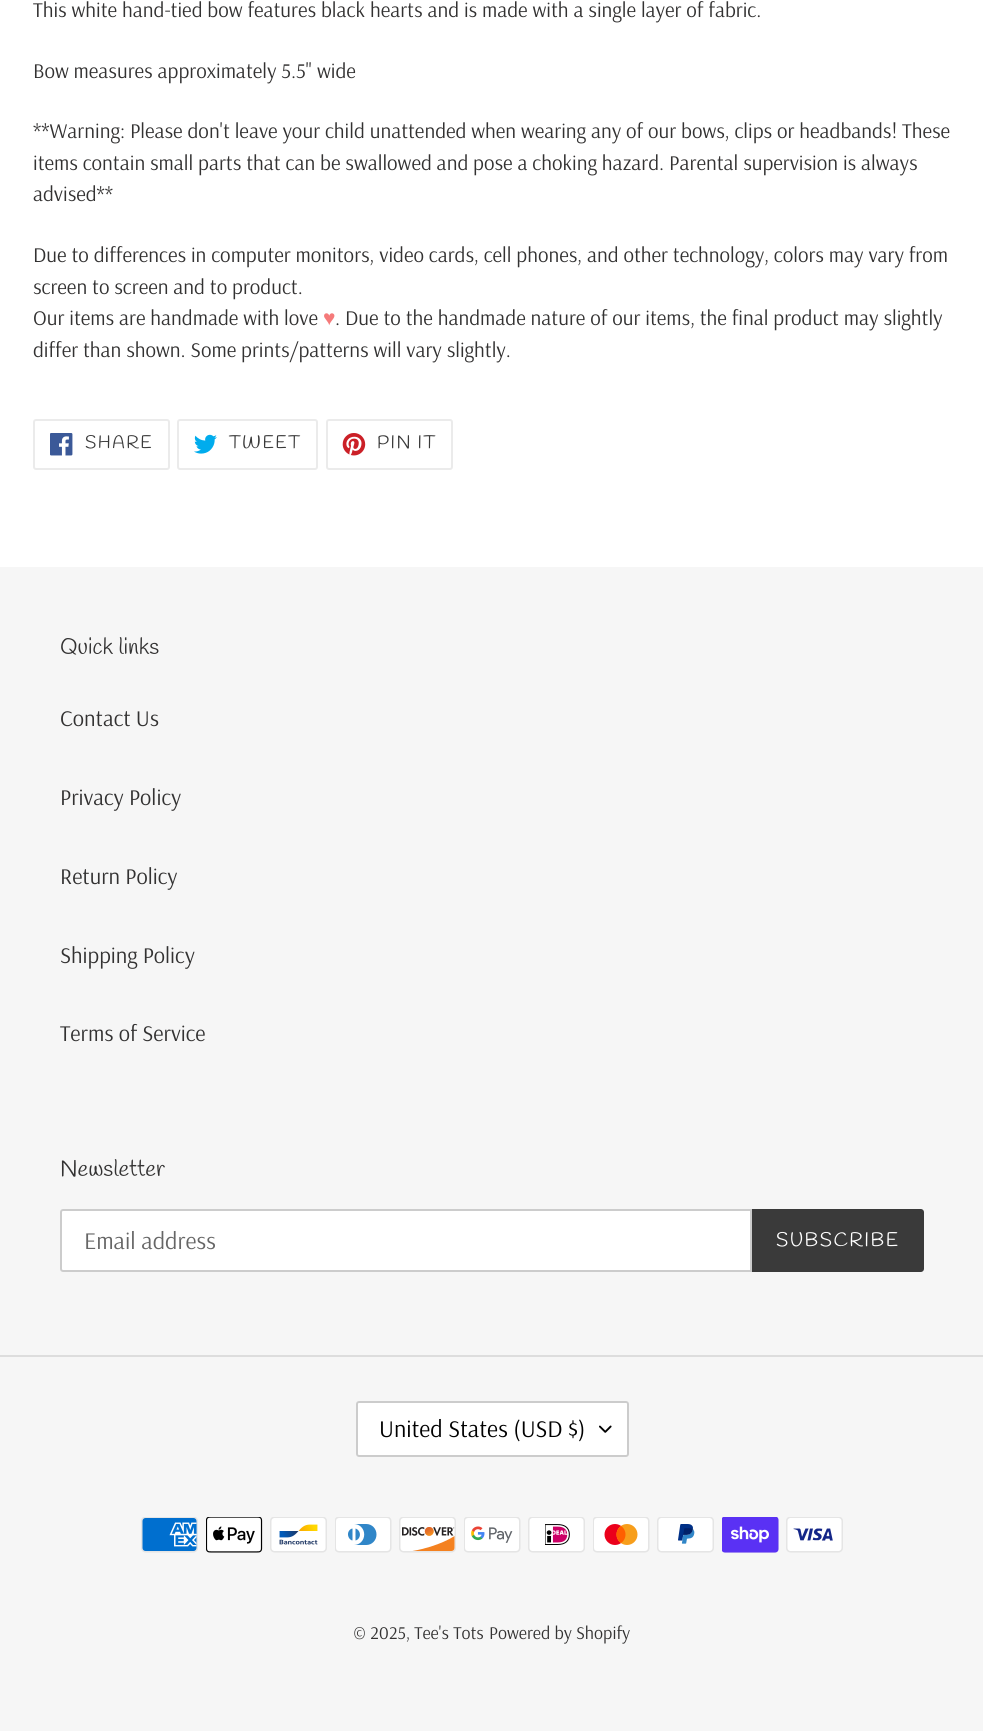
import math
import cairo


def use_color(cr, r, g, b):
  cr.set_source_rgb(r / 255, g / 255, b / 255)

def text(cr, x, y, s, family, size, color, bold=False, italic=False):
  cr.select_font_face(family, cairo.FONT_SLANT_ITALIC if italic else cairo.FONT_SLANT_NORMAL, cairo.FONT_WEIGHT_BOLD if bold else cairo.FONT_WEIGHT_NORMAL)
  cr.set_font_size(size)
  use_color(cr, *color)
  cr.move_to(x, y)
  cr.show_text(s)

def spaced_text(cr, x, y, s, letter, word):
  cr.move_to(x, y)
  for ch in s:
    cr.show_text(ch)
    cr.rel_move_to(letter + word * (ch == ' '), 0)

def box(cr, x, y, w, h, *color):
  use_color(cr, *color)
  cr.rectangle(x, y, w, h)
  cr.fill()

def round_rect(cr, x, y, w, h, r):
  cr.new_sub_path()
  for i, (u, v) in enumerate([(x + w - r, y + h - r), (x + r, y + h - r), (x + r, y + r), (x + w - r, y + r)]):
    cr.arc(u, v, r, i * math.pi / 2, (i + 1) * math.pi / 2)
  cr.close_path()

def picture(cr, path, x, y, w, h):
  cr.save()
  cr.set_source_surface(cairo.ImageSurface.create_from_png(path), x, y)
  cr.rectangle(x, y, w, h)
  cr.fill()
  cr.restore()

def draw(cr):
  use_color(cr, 255, 255, 255)
  cr.paint()
  round_rect(cr, 34, 420, 135, 49, 2)
  use_color(cr, 235, 235, 235)
  cr.stroke()
  picture(cr, "img_01.png", 50, 433, 23, 23)
  round_rect(cr, 178, 420, 139, 49, 2)
  cr.stroke()
  picture(cr, "img_02.png", 194, 434, 23, 20)
  round_rect(cr, 327, 420, 125, 49, 2)
  cr.stroke()
  picture(cr, "img_03.png", 342, 433, 24, 23)
  box(cr, 0, 567, 983, 1164, 246, 246, 246)
  use_color(cr, 255, 255, 255)
  cr.new_path()
  cr.move_to(63, 1210)
  cr.line_to(751, 1210)
  cr.line_to(751, 1271)
  cr.line_to(63, 1271)
  cr.curve_to(62, 1271, 61, 1270, 61, 1269)
  cr.line_to(61, 1212)
  cr.curve_to(61, 1211, 62, 1210, 63, 1210)
  cr.close_path()
  cr.fill_preserve()
  use_color(cr, 204, 204, 204)
  cr.stroke()
  use_color(cr, 58, 58, 58)
  cr.new_path()
  cr.move_to(752, 1209)
  cr.line_to(921, 1209)
  cr.curve_to(922.5, 1209, 924, 1210.5, 924, 1212)
  cr.line_to(924, 1269)
  cr.curve_to(924, 1270.5, 922.5, 1272, 921, 1272)
  cr.line_to(752, 1272)
  cr.close_path()
  cr.fill()
  box(cr, 0, 1355, 983, 2, 221, 221, 221)
  use_color(cr, 255, 255, 255)
  round_rect(cr, 356, 1401, 273, 56, 3)
  cr.fill()
  picture(cr, "img_04.png", 599, 1425, 13, 8)
  round_rect(cr, 357, 1402, 271, 54, 2)
  use_color(cr, 204, 204, 204)
  cr.stroke()
  picture(cr, "img_05.png", 141, 1517, 57, 36)
  picture(cr, "img_06.png", 206, 1517, 57, 36)
  picture(cr, "img_07.png", 270, 1517, 57, 36)
  picture(cr, "img_08.png", 335, 1517, 57, 36)
  picture(cr, "img_09.png", 399, 1517, 57, 36)
  picture(cr, "img_10.png", 464, 1517, 57, 36)
  picture(cr, "img_11.png", 528, 1517, 57, 36)
  picture(cr, "img_12.png", 593, 1517, 57, 36)
  picture(cr, "img_13.png", 657, 1517, 57, 36)
  picture(cr, "img_14.png", 722, 1517, 57, 36)
  picture(cr, "img_15.png", 786, 1517, 57, 36)
  text(cr, 33, 17, "This white hand-tied bow features black hearts and is made with a single layer of fabric.", "Arsenal", 21, (51, 50, 50))
  text(cr, 33, 78, "Bow measures approximately 5.5\" wide", "Arsenal", 21, (51, 50, 50))
  text(cr, 33, 138, "**Warning: Please don't leave your child unattended when wearing any of our bows, clips or headbands! These", "Arsenal", 21, (51, 50, 50))
  text(cr, 33, 170, "items contain small parts that can be swallowed and pose a choking hazard. Parental supervision is always", "Arsenal", 21, (51, 50, 50))
  text(cr, 33, 201, "advised**", "Arsenal", 21, (51, 50, 50))
  text(cr, 33, 262, "Due to differences in computer monitors, video cards, cell phones, and other technology, colors may vary from", "Arsenal", 21, (51, 50, 50))
  text(cr, 33, 294, "screen to screen and to product.", "Arsenal", 21, (51, 50, 50))
  text(cr, 33, 325, "Our items are handmade with love", "Arsenal", 21, (51, 50, 50))
  text(cr, 323, 325, "♥", "Liberation Sans", 21, (245, 122, 122))
  text(cr, 335, 325, ". Due to the handmade nature of our items, the final product may slightly", "Arsenal", 21, (51, 50, 50))
  text(cr, 33, 357, "differ than shown. Some prints/patterns will vary slightly.", "Arsenal", 21, (51, 50, 50))
  cr.select_font_face("Handlee")
  cr.set_font_size(18)
  use_color(cr, 58, 58, 58)
  spaced_text(cr, 85, 448, "SHARE", 1.5, 0)
  spaced_text(cr, 229, 448, "TWEET", 1.5, 0)
  spaced_text(cr, 377, 448, "PIN IT", 1.5, 0)
  text(cr, 60, 654, "Quick links", "Handlee", 22.5, (51, 50, 50))
  text(cr, 60, 726, "Contact Us", "Arsenal", 22.5, (51, 50, 50))
  text(cr, 60, 805, "Privacy Policy", "Arsenal", 22.5, (51, 50, 50))
  text(cr, 60, 884, "Return Policy", "Arsenal", 22.5, (51, 50, 50))
  text(cr, 60, 963, "Shipping Policy", "Arsenal", 22.5, (51, 50, 50))
  text(cr, 60, 1041, "Terms of Service", "Arsenal", 22.5, (51, 50, 50))
  text(cr, 60, 1176, "Newsletter", "Handlee", 22.5, (51, 50, 50))
  text(cr, 84, 1249, "Email address", "Arsenal", 24, (102, 102, 102))
  cr.select_font_face("Handlee")
  cr.set_font_size(19.5)
  use_color(cr, 255, 255, 255)
  spaced_text(cr, 776, 1246, "SUBSCRIBE", 1.5, 0)
  text(cr, 379, 1437, "United States (USD $)", "Arsenal", 24, (0, 0, 0))
  text(cr, 353, 1639, "© 2025, Tee's Tots", "Arsenal", 18, (51, 50, 50))
  text(cr, 489, 1639, "Powered by Shopify", "Arsenal", 18, (51, 50, 50))


surface = cairo.ImageSurface(cairo.FORMAT_RGB24, 983, 1731)
cr = cairo.Context(surface)
options = cairo.FontOptions()
options.set_hint_metrics(cairo.HINT_METRICS_OFF)
options.set_hint_style(cairo.HINT_STYLE_NONE)
cr.set_font_options(options)
cr.set_miter_limit(4)
draw(cr)
surface.write_to_png("out.png")
